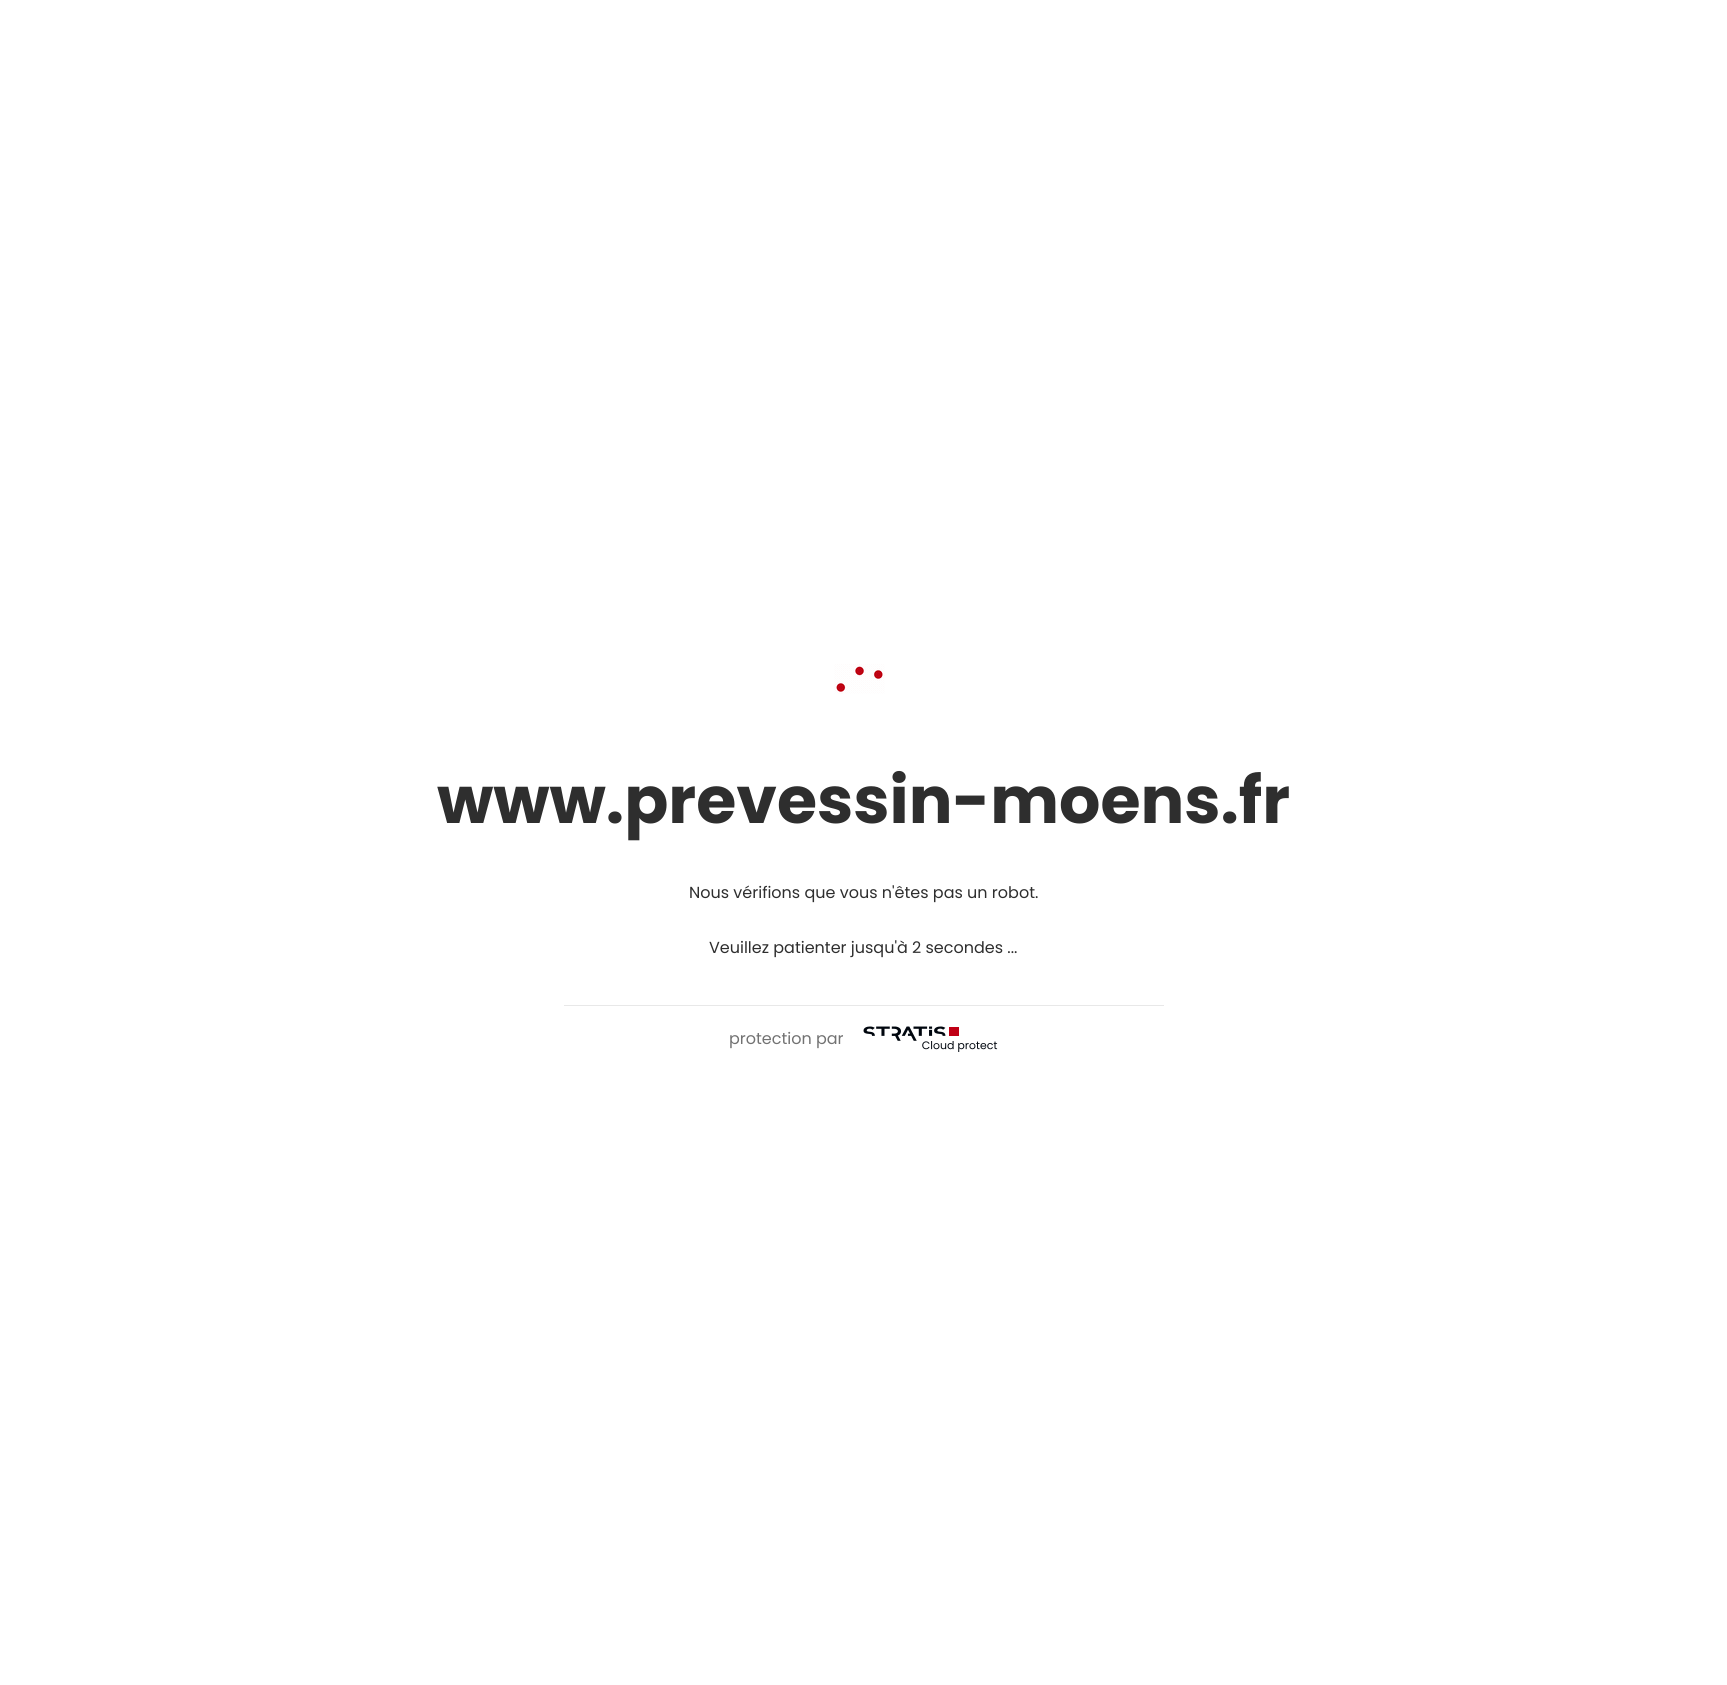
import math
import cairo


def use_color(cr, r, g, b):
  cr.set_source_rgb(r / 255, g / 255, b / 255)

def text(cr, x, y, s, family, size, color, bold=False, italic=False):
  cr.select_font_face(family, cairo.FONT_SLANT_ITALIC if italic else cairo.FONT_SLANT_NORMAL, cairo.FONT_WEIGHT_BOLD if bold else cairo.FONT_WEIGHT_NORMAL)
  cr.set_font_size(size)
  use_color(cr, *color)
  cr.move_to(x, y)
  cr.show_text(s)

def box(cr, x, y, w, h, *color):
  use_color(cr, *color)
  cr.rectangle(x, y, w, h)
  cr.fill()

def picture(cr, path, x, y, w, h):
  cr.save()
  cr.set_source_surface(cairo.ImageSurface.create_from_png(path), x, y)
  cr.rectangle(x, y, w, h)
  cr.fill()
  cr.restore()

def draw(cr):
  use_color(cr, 255, 255, 255)
  cr.paint()
  picture(cr, "img_01.png", 834, 664, 51, 30)
  box(cr, 564, 1005, 600, 1, 232, 232, 232)
  picture(cr, "img_02.png", 863, 1026, 135, 26)
  text(cr, 437, 823, "www.prevessin-moens.fr", "Poppins", 65, (46, 46, 46), bold=True)
  text(cr, 689, 898, "Nous vérifions que vous n'êtes pas un robot.", "Poppins", 16, (46, 46, 46))
  text(cr, 709, 953, "Veuillez patienter jusqu'à 2 secondes ...", "Poppins", 16, (46, 46, 46))
  text(cr, 729, 1044, "protection par", "Poppins", 16, (114, 114, 114))


surface = cairo.ImageSurface(cairo.FORMAT_RGB24, 1727, 1685)
cr = cairo.Context(surface)
options = cairo.FontOptions()
options.set_hint_metrics(cairo.HINT_METRICS_OFF)
options.set_hint_style(cairo.HINT_STYLE_NONE)
cr.set_font_options(options)
cr.set_miter_limit(4)
draw(cr)
surface.write_to_png("out.png")
